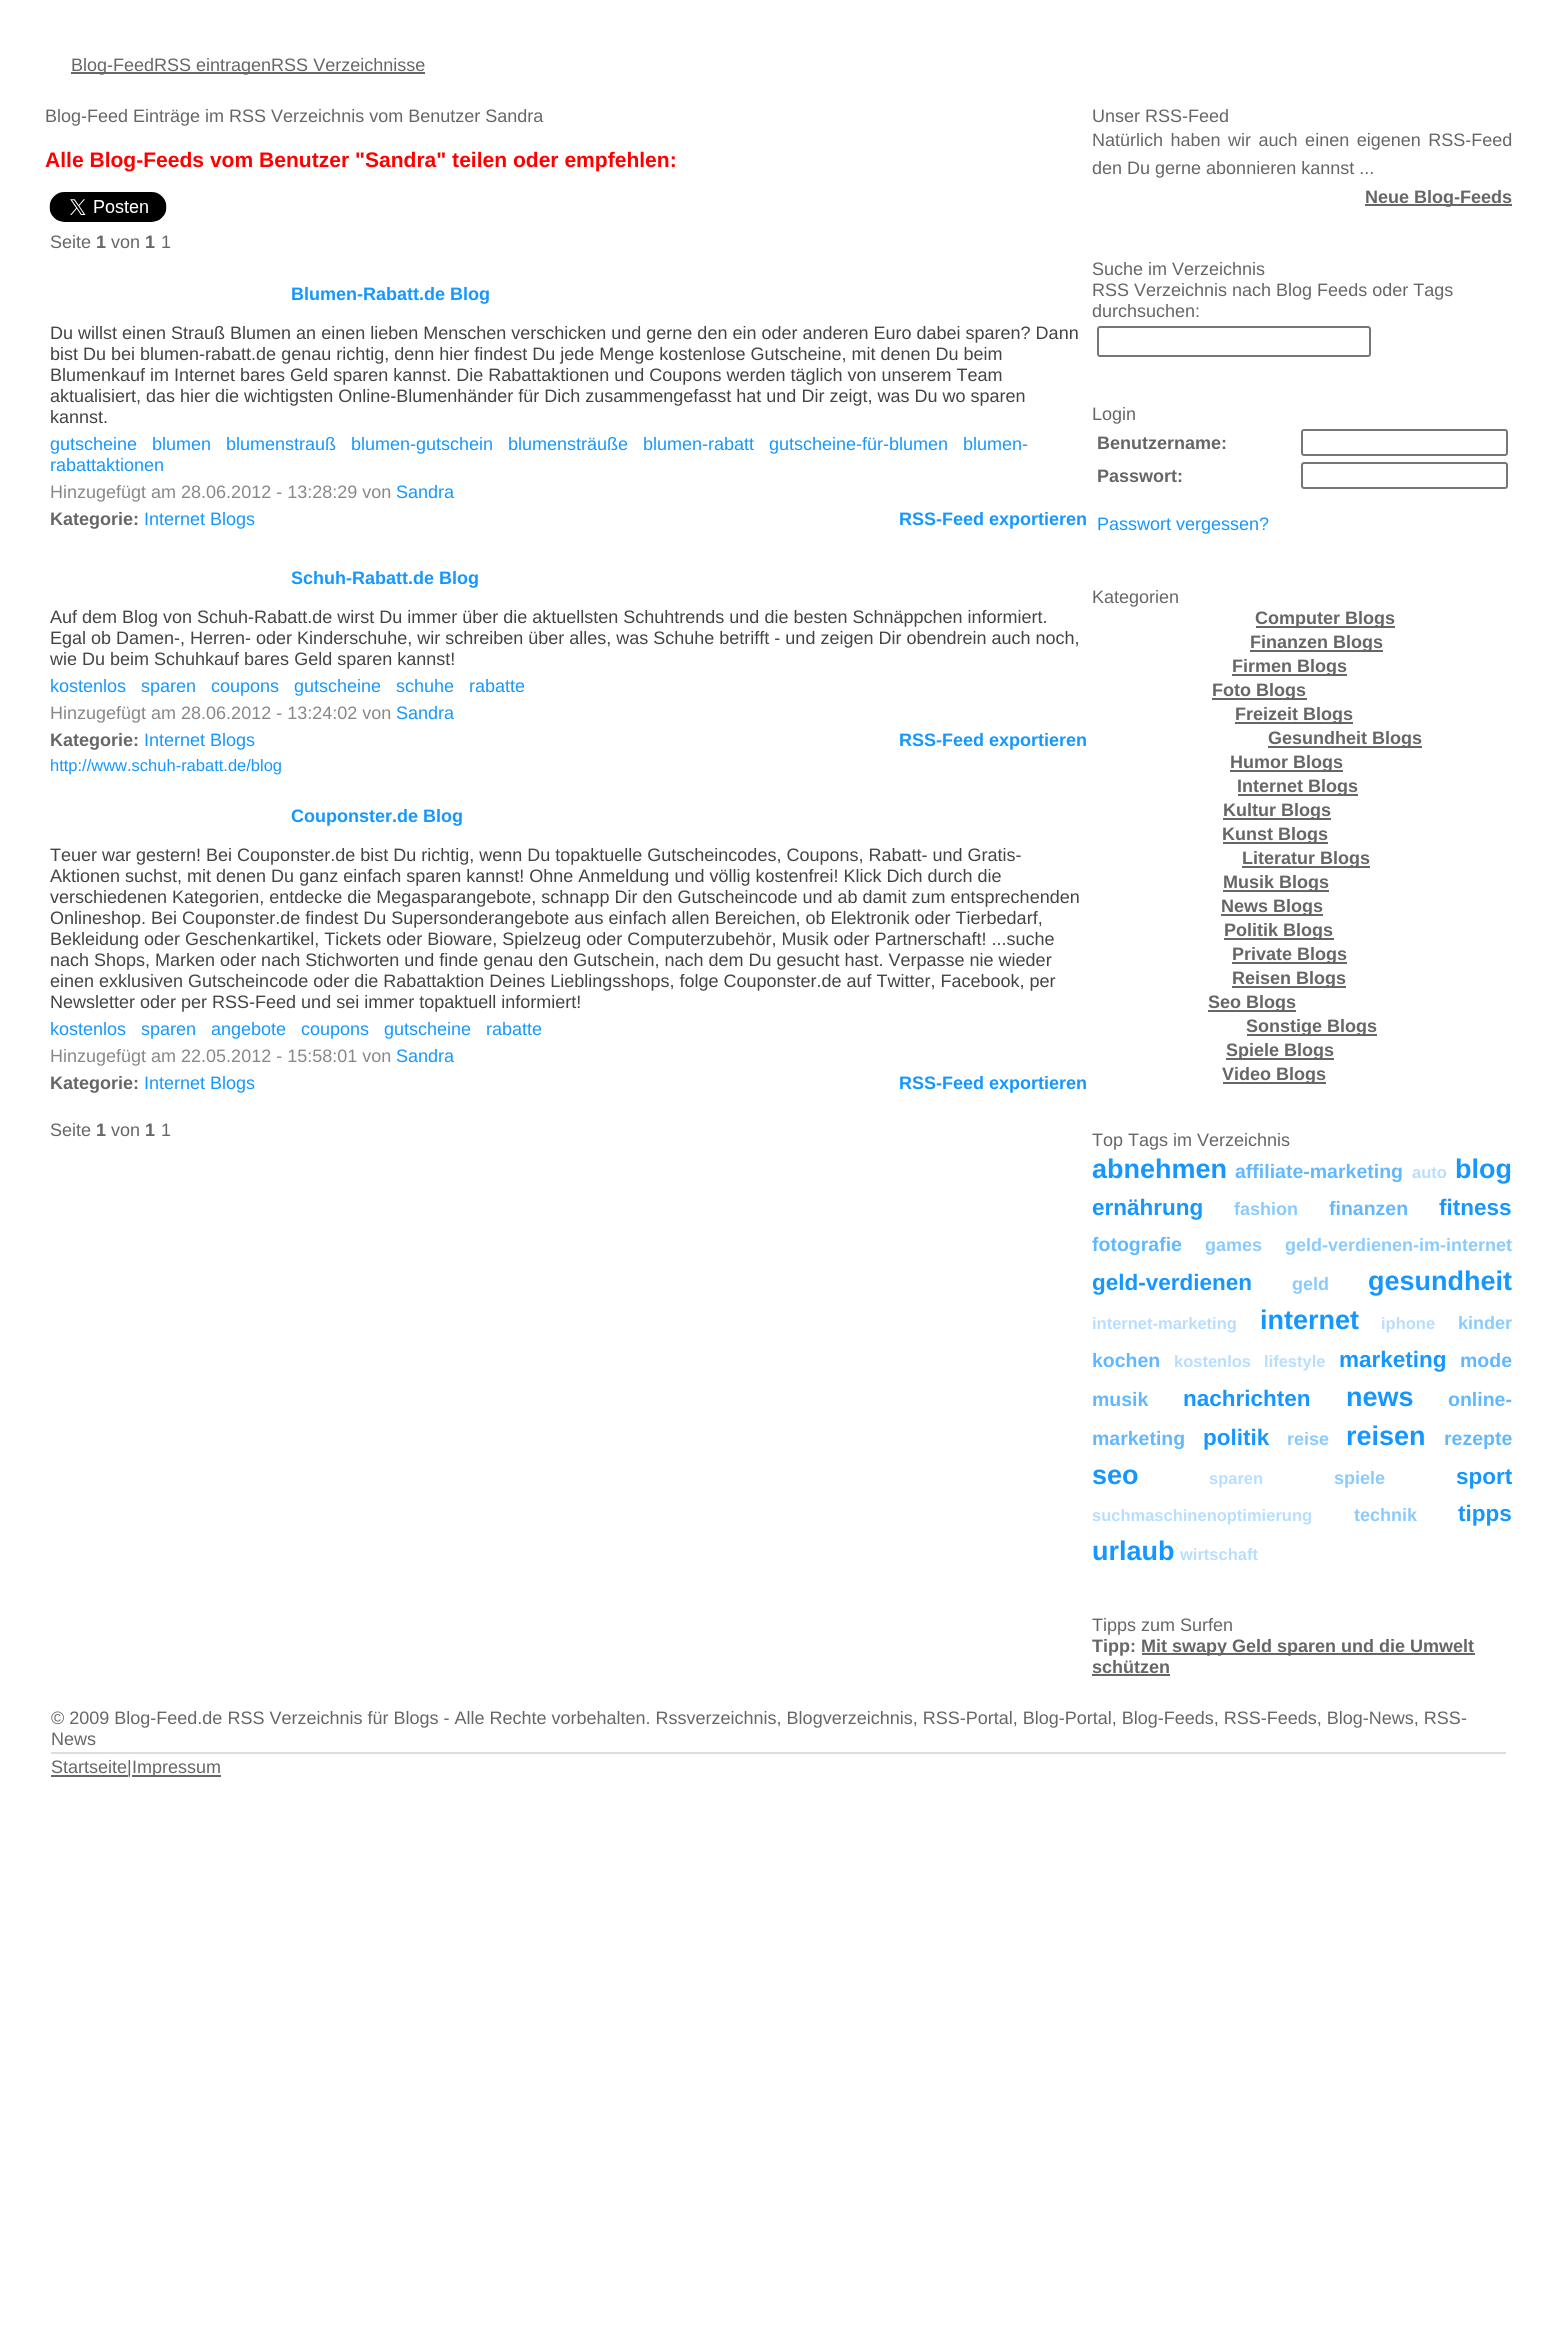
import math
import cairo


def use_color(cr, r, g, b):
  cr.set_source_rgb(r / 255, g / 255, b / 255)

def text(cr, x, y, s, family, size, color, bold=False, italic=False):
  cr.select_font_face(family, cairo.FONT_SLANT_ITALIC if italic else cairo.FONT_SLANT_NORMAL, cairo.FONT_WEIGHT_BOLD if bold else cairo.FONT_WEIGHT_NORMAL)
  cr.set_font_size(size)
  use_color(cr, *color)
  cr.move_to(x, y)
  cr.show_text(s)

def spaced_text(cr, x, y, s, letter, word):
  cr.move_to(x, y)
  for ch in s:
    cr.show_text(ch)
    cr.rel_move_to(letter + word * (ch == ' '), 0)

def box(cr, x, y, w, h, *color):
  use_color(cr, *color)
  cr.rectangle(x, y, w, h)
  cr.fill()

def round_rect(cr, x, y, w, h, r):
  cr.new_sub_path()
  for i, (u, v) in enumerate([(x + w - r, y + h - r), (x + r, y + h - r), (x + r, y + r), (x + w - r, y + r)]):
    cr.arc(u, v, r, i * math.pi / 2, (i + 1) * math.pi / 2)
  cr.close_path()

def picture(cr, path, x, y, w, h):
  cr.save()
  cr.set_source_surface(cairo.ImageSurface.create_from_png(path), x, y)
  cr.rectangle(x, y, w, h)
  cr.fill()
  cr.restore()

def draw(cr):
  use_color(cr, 255, 255, 255)
  cr.paint()
  box(cr, 71, 72, 354, 2, 102, 102, 102)
  picture(cr, "img_01.png", 49, 192, 118, 30)
  box(cr, 1365, 204, 147, 2, 102, 102, 102)
  round_rect(cr, 1098, 327, 272, 29, 2)
  use_color(cr, 118, 118, 118)
  cr.stroke()
  round_rect(cr, 1302, 430, 205, 25, 2)
  cr.stroke()
  round_rect(cr, 1302, 463, 205, 25, 2)
  cr.stroke()
  box(cr, 1256, 626, 139, 2, 102, 102, 102)
  box(cr, 1250, 650, 133, 2, 102, 102, 102)
  box(cr, 1232, 674, 115, 2, 102, 102, 102)
  box(cr, 1212, 698, 95, 2, 102, 102, 102)
  box(cr, 1235, 722, 118, 2, 102, 102, 102)
  box(cr, 1268, 746, 154, 2, 102, 102, 102)
  box(cr, 1230, 770, 113, 2, 102, 102, 102)
  box(cr, 1238, 794, 120, 2, 102, 102, 102)
  box(cr, 1223, 818, 108, 2, 102, 102, 102)
  box(cr, 1223, 842, 105, 2, 102, 102, 102)
  box(cr, 1242, 866, 128, 2, 102, 102, 102)
  box(cr, 1223, 890, 106, 2, 102, 102, 102)
  box(cr, 1221, 914, 102, 2, 102, 102, 102)
  box(cr, 1224, 938, 110, 2, 102, 102, 102)
  box(cr, 1232, 962, 115, 2, 102, 102, 102)
  box(cr, 1232, 986, 114, 2, 102, 102, 102)
  box(cr, 1208, 1010, 88, 2, 102, 102, 102)
  box(cr, 1247, 1034, 130, 2, 102, 102, 102)
  box(cr, 1226, 1058, 108, 2, 102, 102, 102)
  box(cr, 1223, 1082, 103, 2, 102, 102, 102)
  box(cr, 1142, 1653, 333, 2, 102, 102, 102)
  box(cr, 1092, 1674, 78, 2, 102, 102, 102)
  box(cr, 51, 1752, 1455, 2, 221, 221, 221)
  box(cr, 51, 1775, 77, 2, 102, 102, 102)
  box(cr, 132, 1775, 89, 2, 102, 102, 102)
  text(cr, 71, 71, "Blog-FeedRSS eintragenRSS Verzeichnisse", "Liberation Sans", 18, (102, 102, 102))
  text(cr, 45, 122, "Blog-Feed Einträge im RSS Verzeichnis vom Benutzer Sandra", "Liberation Sans", 18, (102, 102, 102))
  text(cr, 45, 167, "Alle Blog-Feeds vom Benutzer \"Sandra\" teilen oder empfehlen:", "Liberation Sans", 21.05, (255, 0, 0), bold=True)
  text(cr, 50, 248, "Seite", "Liberation Sans", 18, (102, 102, 102))
  text(cr, 96, 248, "1", "Liberation Sans", 18, (102, 102, 102), bold=True)
  text(cr, 111, 248, "von", "Liberation Sans", 18, (102, 102, 102))
  text(cr, 145, 248, "1", "Liberation Sans", 18, (102, 102, 102), bold=True)
  text(cr, 161, 248, "1", "Liberation Sans", 18, (102, 102, 102))
  text(cr, 291, 300, "Blumen-Rabatt.de Blog", "Liberation Sans", 18, (21, 151, 255), bold=True)
  text(cr, 50, 339, "Du willst einen Strauß Blumen an einen lieben Menschen verschicken und gerne den ein oder anderen Euro dabei sparen? Dann", "Liberation Sans", 18, (68, 68, 68))
  text(cr, 50, 360, "bist Du bei blumen-rabatt.de genau richtig, denn hier findest Du jede Menge kostenlose Gutscheine, mit denen Du beim", "Liberation Sans", 18, (68, 68, 68))
  text(cr, 50, 381, "Blumenkauf im Internet bares Geld sparen kannst. Die Rabattaktionen und Coupons werden täglich von unserem Team", "Liberation Sans", 18, (68, 68, 68))
  text(cr, 50, 402, "aktualisiert, das hier die wichtigsten Online-Blumenhänder für Dich zusammengefasst hat und Dir zeigt, was Du wo sparen", "Liberation Sans", 18, (68, 68, 68))
  text(cr, 50, 423, "kannst.", "Liberation Sans", 18, (68, 68, 68))
  text(cr, 50, 450, "gutscheine", "Liberation Sans", 18, (21, 151, 255))
  text(cr, 152, 450, "blumen", "Liberation Sans", 18, (21, 151, 255))
  text(cr, 226, 450, "blumenstrauß", "Liberation Sans", 18, (21, 151, 255))
  text(cr, 351, 450, "blumen-gutschein", "Liberation Sans", 18, (21, 151, 255))
  text(cr, 508, 450, "blumensträuße", "Liberation Sans", 18, (21, 151, 255))
  text(cr, 643, 450, "blumen-rabatt", "Liberation Sans", 18, (21, 151, 255))
  text(cr, 769, 450, "gutscheine-für-blumen", "Liberation Sans", 18, (21, 151, 255))
  text(cr, 963, 450, "blumen-", "Liberation Sans", 18, (21, 151, 255))
  text(cr, 50, 471, "rabattaktionen", "Liberation Sans", 18, (21, 151, 255))
  text(cr, 50, 498, "Hinzugefügt am 28.06.2012 - 13:28:29 von", "Liberation Sans", 18, (136, 136, 136))
  text(cr, 396, 498, "Sandra", "Liberation Sans", 18, (21, 151, 255))
  text(cr, 50, 525, "Kategorie:", "Liberation Sans", 18, (102, 102, 102), bold=True)
  text(cr, 144, 525, "Internet Blogs", "Liberation Sans", 18, (21, 151, 255))
  text(cr, 899, 525, "RSS-Feed exportieren", "Liberation Sans", 18, (21, 151, 255), bold=True)
  text(cr, 291, 584, "Schuh-Rabatt.de Blog", "Liberation Sans", 18, (21, 151, 255), bold=True)
  text(cr, 50, 623, "Auf dem Blog von Schuh-Rabatt.de wirst Du immer über die aktuellsten Schuhtrends und die besten Schnäppchen informiert.", "Liberation Sans", 18, (68, 68, 68))
  text(cr, 50, 644, "Egal ob Damen-, Herren- oder Kinderschuhe, wir schreiben über alles, was Schuhe betrifft - und zeigen Dir obendrein auch noch,", "Liberation Sans", 18, (68, 68, 68))
  text(cr, 50, 665, "wie Du beim Schuhkauf bares Geld sparen kannst!", "Liberation Sans", 18, (68, 68, 68))
  text(cr, 50, 692, "kostenlos", "Liberation Sans", 18, (21, 151, 255))
  text(cr, 141, 692, "sparen", "Liberation Sans", 18, (21, 151, 255))
  text(cr, 211, 692, "coupons", "Liberation Sans", 18, (21, 151, 255))
  text(cr, 294, 692, "gutscheine", "Liberation Sans", 18, (21, 151, 255))
  text(cr, 396, 692, "schuhe", "Liberation Sans", 18, (21, 151, 255))
  text(cr, 469, 692, "rabatte", "Liberation Sans", 18, (21, 151, 255))
  text(cr, 50, 719, "Hinzugefügt am 28.06.2012 - 13:24:02 von", "Liberation Sans", 18, (136, 136, 136))
  text(cr, 396, 719, "Sandra", "Liberation Sans", 18, (21, 151, 255))
  text(cr, 50, 746, "Kategorie:", "Liberation Sans", 18, (102, 102, 102), bold=True)
  text(cr, 144, 746, "Internet Blogs", "Liberation Sans", 18, (21, 151, 255))
  text(cr, 899, 746, "RSS-Feed exportieren", "Liberation Sans", 18, (21, 151, 255), bold=True)
  text(cr, 50, 771, "http://www.schuh-rabatt.de/blog", "Liberation Sans", 16.5, (21, 151, 255))
  text(cr, 291, 822, "Couponster.de Blog", "Liberation Sans", 18, (21, 151, 255), bold=True)
  text(cr, 50, 861, "Teuer war gestern! Bei Couponster.de bist Du richtig, wenn Du topaktuelle Gutscheincodes, Coupons, Rabatt- und Gratis-", "Liberation Sans", 18, (68, 68, 68))
  text(cr, 50, 882, "Aktionen suchst, mit denen Du ganz einfach sparen kannst! Ohne Anmeldung und völlig kostenfrei! Klick Dich durch die", "Liberation Sans", 18, (68, 68, 68))
  text(cr, 50, 903, "verschiedenen Kategorien, entdecke die Megasparangebote, schnapp Dir den Gutscheincode und ab damit zum entsprechenden", "Liberation Sans", 18, (68, 68, 68))
  text(cr, 50, 924, "Onlineshop. Bei Couponster.de findest Du Supersonderangebote aus einfach allen Bereichen, ob Elektronik oder Tierbedarf,", "Liberation Sans", 18, (68, 68, 68))
  text(cr, 50, 945, "Bekleidung oder Geschenkartikel, Tickets oder Bioware, Spielzeug oder Computerzubehör, Musik oder Partnerschaft! ...suche", "Liberation Sans", 18, (68, 68, 68))
  text(cr, 50, 966, "nach Shops, Marken oder nach Stichworten und finde genau den Gutschein, nach dem Du gesucht hast. Verpasse nie wieder", "Liberation Sans", 18, (68, 68, 68))
  text(cr, 50, 987, "einen exklusiven Gutscheincode oder die Rabattaktion Deines Lieblingsshops, folge Couponster.de auf Twitter, Facebook, per", "Liberation Sans", 18, (68, 68, 68))
  text(cr, 50, 1008, "Newsletter oder per RSS-Feed und sei immer topaktuell informiert!", "Liberation Sans", 18, (68, 68, 68))
  text(cr, 50, 1035, "kostenlos", "Liberation Sans", 18, (21, 151, 255))
  text(cr, 141, 1035, "sparen", "Liberation Sans", 18, (21, 151, 255))
  text(cr, 211, 1035, "angebote", "Liberation Sans", 18, (21, 151, 255))
  text(cr, 301, 1035, "coupons", "Liberation Sans", 18, (21, 151, 255))
  text(cr, 384, 1035, "gutscheine", "Liberation Sans", 18, (21, 151, 255))
  text(cr, 486, 1035, "rabatte", "Liberation Sans", 18, (21, 151, 255))
  text(cr, 50, 1062, "Hinzugefügt am 22.05.2012 - 15:58:01 von", "Liberation Sans", 18, (136, 136, 136))
  text(cr, 396, 1062, "Sandra", "Liberation Sans", 18, (21, 151, 255))
  text(cr, 50, 1089, "Kategorie:", "Liberation Sans", 18, (102, 102, 102), bold=True)
  text(cr, 144, 1089, "Internet Blogs", "Liberation Sans", 18, (21, 151, 255))
  text(cr, 899, 1089, "RSS-Feed exportieren", "Liberation Sans", 18, (21, 151, 255), bold=True)
  text(cr, 50, 1136, "Seite", "Liberation Sans", 18, (102, 102, 102))
  text(cr, 96, 1136, "1", "Liberation Sans", 18, (102, 102, 102), bold=True)
  text(cr, 111, 1136, "von", "Liberation Sans", 18, (102, 102, 102))
  text(cr, 145, 1136, "1", "Liberation Sans", 18, (102, 102, 102), bold=True)
  text(cr, 161, 1136, "1", "Liberation Sans", 18, (102, 102, 102))
  text(cr, 1092, 122, "Unser RSS-Feed", "Liberation Sans", 18, (102, 102, 102))
  spaced_text(cr, 1092, 146, "Natürlich haben wir auch einen eigenen RSS-Feed", 0, 2.5)
  text(cr, 1092, 174, "den Du gerne abonnieren kannst ...", "Liberation Sans", 18, (102, 102, 102))
  text(cr, 1365, 203, "Neue Blog-Feeds", "Liberation Sans", 18, (102, 102, 102), bold=True)
  text(cr, 1092, 275, "Suche im Verzeichnis", "Liberation Sans", 18, (102, 102, 102))
  text(cr, 1092, 296, "RSS Verzeichnis nach Blog Feeds oder Tags", "Liberation Sans", 18, (102, 102, 102))
  text(cr, 1092, 317, "durchsuchen:", "Liberation Sans", 18, (102, 102, 102))
  text(cr, 1092, 420, "Login", "Liberation Sans", 18, (102, 102, 102))
  text(cr, 1097, 449, "Benutzername:", "Liberation Sans", 18, (102, 102, 102), bold=True)
  text(cr, 1097, 482, "Passwort:", "Liberation Sans", 18, (102, 102, 102), bold=True)
  text(cr, 1097, 530, "Passwort vergessen?", "Liberation Sans", 18, (21, 151, 255))
  text(cr, 1092, 603, "Kategorien", "Liberation Sans", 18, (102, 102, 102))
  text(cr, 1255, 624, "Computer Blogs", "Liberation Sans", 18, (102, 102, 102), bold=True)
  text(cr, 1250, 648, "Finanzen Blogs", "Liberation Sans", 18, (102, 102, 102), bold=True)
  text(cr, 1232, 672, "Firmen Blogs", "Liberation Sans", 18, (102, 102, 102), bold=True)
  text(cr, 1212, 696, "Foto Blogs", "Liberation Sans", 18, (102, 102, 102), bold=True)
  text(cr, 1235, 720, "Freizeit Blogs", "Liberation Sans", 18, (102, 102, 102), bold=True)
  text(cr, 1268, 744, "Gesundheit Blogs", "Liberation Sans", 18, (102, 102, 102), bold=True)
  text(cr, 1230, 768, "Humor Blogs", "Liberation Sans", 18, (102, 102, 102), bold=True)
  text(cr, 1237, 792, "Internet Blogs", "Liberation Sans", 18, (102, 102, 102), bold=True)
  text(cr, 1223, 816, "Kultur Blogs", "Liberation Sans", 18, (102, 102, 102), bold=True)
  text(cr, 1222, 840, "Kunst Blogs", "Liberation Sans", 18, (102, 102, 102), bold=True)
  text(cr, 1242, 864, "Literatur Blogs", "Liberation Sans", 18, (102, 102, 102), bold=True)
  text(cr, 1223, 888, "Musik Blogs", "Liberation Sans", 18, (102, 102, 102), bold=True)
  text(cr, 1221, 912, "News Blogs", "Liberation Sans", 18, (102, 102, 102), bold=True)
  text(cr, 1224, 936, "Politik Blogs", "Liberation Sans", 18, (102, 102, 102), bold=True)
  text(cr, 1232, 960, "Private Blogs", "Liberation Sans", 18, (102, 102, 102), bold=True)
  text(cr, 1232, 984, "Reisen Blogs", "Liberation Sans", 18, (102, 102, 102), bold=True)
  text(cr, 1208, 1008, "Seo Blogs", "Liberation Sans", 18, (102, 102, 102), bold=True)
  text(cr, 1246, 1032, "Sonstige Blogs", "Liberation Sans", 18, (102, 102, 102), bold=True)
  text(cr, 1226, 1056, "Spiele Blogs", "Liberation Sans", 18, (102, 102, 102), bold=True)
  text(cr, 1222, 1080, "Video Blogs", "Liberation Sans", 18, (102, 102, 102), bold=True)
  text(cr, 1092, 1146, "Top Tags im Verzeichnis", "Liberation Sans", 18, (102, 102, 102))
  text(cr, 1092, 1178, "abnehmen", "Liberation Sans", 27, (21, 151, 255), bold=True)
  text(cr, 1235, 1178, "affiliate-marketing", "Liberation Sans", 19.5, (98, 184, 255), bold=True)
  text(cr, 1412, 1178, "auto", "Liberation Sans", 16.5, (183, 222, 255), bold=True)
  text(cr, 1455, 1178, "blog", "Liberation Sans", 27, (21, 151, 255), bold=True)
  text(cr, 1092, 1215, "ernährung", "Liberation Sans", 22.5, (21, 151, 255), bold=True)
  text(cr, 1234, 1215, "fashion", "Liberation Sans", 18, (138, 203, 255), bold=True)
  text(cr, 1329, 1215, "finanzen", "Liberation Sans", 19.5, (98, 184, 255), bold=True)
  text(cr, 1439, 1215, "fitness", "Liberation Sans", 22.5, (21, 151, 255), bold=True)
  text(cr, 1092, 1251, "fotografie", "Liberation Sans", 19.5, (98, 184, 255), bold=True)
  text(cr, 1205, 1251, "games", "Liberation Sans", 18, (138, 203, 255), bold=True)
  text(cr, 1285, 1251, "geld-verdienen-im-internet", "Liberation Sans", 18, (138, 203, 255), bold=True)
  text(cr, 1092, 1290, "geld-verdienen", "Liberation Sans", 22.5, (21, 151, 255), bold=True)
  text(cr, 1292, 1290, "geld", "Liberation Sans", 18, (138, 203, 255), bold=True)
  text(cr, 1368, 1290, "gesundheit", "Liberation Sans", 27, (21, 151, 255), bold=True)
  text(cr, 1092, 1329, "internet-marketing", "Liberation Sans", 16.5, (183, 222, 255), bold=True)
  text(cr, 1260, 1329, "internet", "Liberation Sans", 27, (21, 151, 255), bold=True)
  text(cr, 1381, 1329, "iphone", "Liberation Sans", 16.5, (183, 222, 255), bold=True)
  text(cr, 1458, 1329, "kinder", "Liberation Sans", 18, (138, 203, 255), bold=True)
  text(cr, 1092, 1367, "kochen", "Liberation Sans", 19.5, (98, 184, 255), bold=True)
  text(cr, 1174, 1367, "kostenlos", "Liberation Sans", 16.5, (183, 222, 255), bold=True)
  text(cr, 1264, 1367, "lifestyle", "Liberation Sans", 16.5, (183, 222, 255), bold=True)
  text(cr, 1339, 1367, "marketing", "Liberation Sans", 22.5, (21, 151, 255), bold=True)
  text(cr, 1460, 1367, "mode", "Liberation Sans", 19.5, (98, 184, 255), bold=True)
  text(cr, 1092, 1406, "musik", "Liberation Sans", 19.5, (98, 184, 255), bold=True)
  text(cr, 1183, 1406, "nachrichten", "Liberation Sans", 22.5, (21, 151, 255), bold=True)
  text(cr, 1346, 1406, "news", "Liberation Sans", 27, (21, 151, 255), bold=True)
  text(cr, 1448, 1406, "online-", "Liberation Sans", 19.5, (98, 184, 255), bold=True)
  text(cr, 1092, 1445, "marketing", "Liberation Sans", 19.5, (98, 184, 255), bold=True)
  text(cr, 1203, 1445, "politik", "Liberation Sans", 22.5, (21, 151, 255), bold=True)
  text(cr, 1287, 1445, "reise", "Liberation Sans", 18, (138, 203, 255), bold=True)
  text(cr, 1346, 1445, "reisen", "Liberation Sans", 27, (21, 151, 255), bold=True)
  text(cr, 1444, 1445, "rezepte", "Liberation Sans", 19.5, (98, 184, 255), bold=True)
  text(cr, 1092, 1484, "seo", "Liberation Sans", 27, (21, 151, 255), bold=True)
  text(cr, 1209, 1484, "sparen", "Liberation Sans", 16.5, (183, 222, 255), bold=True)
  text(cr, 1334, 1484, "spiele", "Liberation Sans", 18, (138, 203, 255), bold=True)
  text(cr, 1456, 1484, "sport", "Liberation Sans", 22.5, (21, 151, 255), bold=True)
  text(cr, 1092, 1521, "suchmaschinenoptimierung", "Liberation Sans", 16.5, (183, 222, 255), bold=True)
  text(cr, 1354, 1521, "technik", "Liberation Sans", 18, (138, 203, 255), bold=True)
  text(cr, 1458, 1521, "tipps", "Liberation Sans", 22.5, (21, 151, 255), bold=True)
  text(cr, 1092, 1560, "urlaub", "Liberation Sans", 27, (21, 151, 255), bold=True)
  text(cr, 1180, 1560, "wirtschaft", "Liberation Sans", 16.5, (183, 222, 255), bold=True)
  text(cr, 1092, 1631, "Tipps zum Surfen", "Liberation Sans", 18, (102, 102, 102))
  text(cr, 1092, 1652, "Tipp:", "Liberation Sans", 18, (102, 102, 102), bold=True)
  text(cr, 1141, 1652, "Mit swapy Geld sparen und die Umwelt", "Liberation Sans", 18, (102, 102, 102), bold=True)
  text(cr, 1092, 1673, "schützen", "Liberation Sans", 18, (102, 102, 102), bold=True)
  text(cr, 51, 1724, "© 2009 Blog-Feed.de RSS Verzeichnis für Blogs - Alle Rechte vorbehalten. Rssverzeichnis, Blogverzeichnis, RSS-Portal, Blog-Portal, Blog-Feeds, RSS-Feeds, Blog-News, RSS-", "Liberation Sans", 18, (102, 102, 102))
  text(cr, 51, 1745, "News", "Liberation Sans", 18, (102, 102, 102))
  text(cr, 51, 1773, "Startseite|", "Liberation Sans", 18, (102, 102, 102))
  text(cr, 132, 1773, "Impressum", "Liberation Sans", 18, (102, 102, 102))


surface = cairo.ImageSurface(cairo.FORMAT_RGB24, 1557, 2345)
cr = cairo.Context(surface)
options = cairo.FontOptions()
options.set_hint_metrics(cairo.HINT_METRICS_OFF)
options.set_hint_style(cairo.HINT_STYLE_NONE)
cr.set_font_options(options)
cr.set_miter_limit(4)
draw(cr)
surface.write_to_png("out.png")
